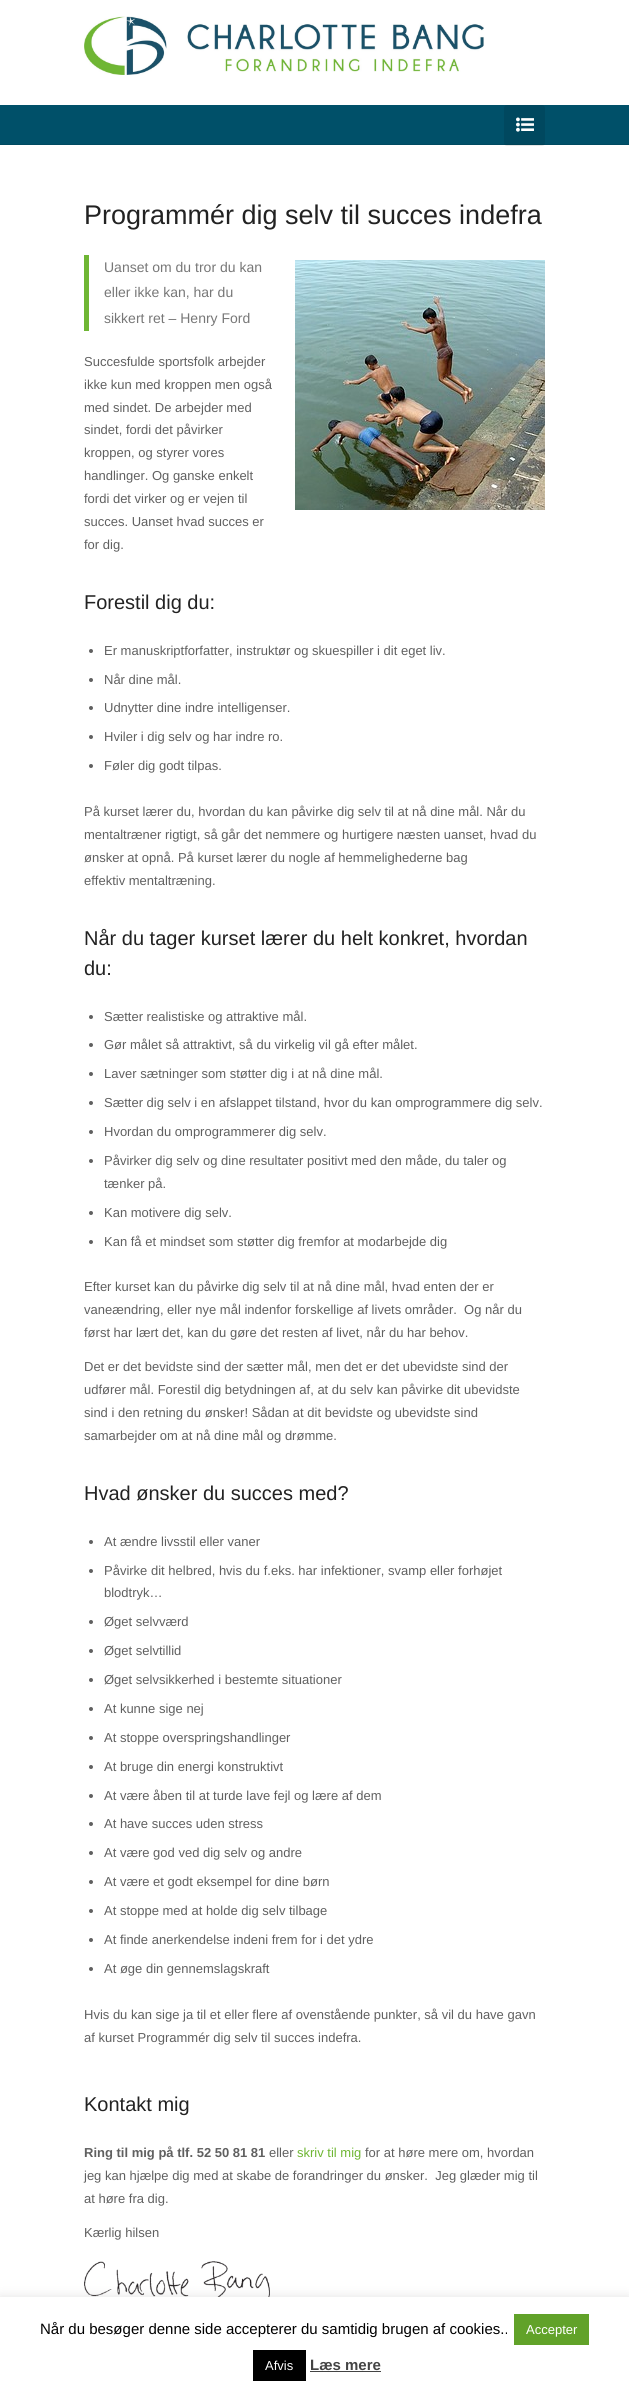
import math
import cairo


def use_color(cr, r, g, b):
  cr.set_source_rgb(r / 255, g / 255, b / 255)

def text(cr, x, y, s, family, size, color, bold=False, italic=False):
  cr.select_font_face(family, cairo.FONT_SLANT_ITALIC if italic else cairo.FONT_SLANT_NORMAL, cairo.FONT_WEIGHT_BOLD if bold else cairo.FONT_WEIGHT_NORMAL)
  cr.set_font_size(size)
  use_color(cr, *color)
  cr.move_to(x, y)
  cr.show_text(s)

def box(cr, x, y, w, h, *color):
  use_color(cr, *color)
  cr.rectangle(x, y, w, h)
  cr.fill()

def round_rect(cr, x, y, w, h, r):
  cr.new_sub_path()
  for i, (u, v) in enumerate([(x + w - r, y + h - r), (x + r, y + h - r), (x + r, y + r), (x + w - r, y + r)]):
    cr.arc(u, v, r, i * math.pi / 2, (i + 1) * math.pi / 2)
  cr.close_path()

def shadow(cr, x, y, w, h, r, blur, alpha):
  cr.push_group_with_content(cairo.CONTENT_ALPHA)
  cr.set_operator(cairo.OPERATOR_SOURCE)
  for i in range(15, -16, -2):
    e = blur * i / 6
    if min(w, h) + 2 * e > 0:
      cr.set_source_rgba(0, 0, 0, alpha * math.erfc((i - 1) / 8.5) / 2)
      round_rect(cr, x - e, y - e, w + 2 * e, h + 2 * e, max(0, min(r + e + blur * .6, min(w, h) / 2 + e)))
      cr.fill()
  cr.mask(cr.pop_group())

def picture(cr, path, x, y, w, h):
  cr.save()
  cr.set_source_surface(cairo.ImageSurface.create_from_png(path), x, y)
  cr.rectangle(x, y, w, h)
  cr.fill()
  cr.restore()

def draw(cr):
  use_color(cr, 255, 255, 255)
  cr.paint()
  picture(cr, "img_01.png", 84, 16, 400, 59)
  box(cr, 0, 105, 629, 39, 0, 80, 105)
  box(cr, 0, 144, 629, 1, 0, 74, 97)
  cr.set_source_rgba(0, 0, 0, 0.1)
  round_rect(cr, 504, 105, 41, 41, 3)
  cr.fill()
  picture(cr, "img_02.png", 516, 117, 18, 15)
  box(cr, 84, 255, 5, 76, 111, 182, 52)
  picture(cr, "img_03.png", 295, 260, 250, 250)
  use_color(cr, 96, 96, 96)
  cr.arc(91, 651, 2, 0, 2 * math.pi)
  cr.fill()
  cr.arc(91, 680, 2, 0, 2 * math.pi)
  cr.fill()
  cr.arc(91, 708, 2, 0, 2 * math.pi)
  cr.fill()
  cr.arc(91, 737, 2, 0, 2 * math.pi)
  cr.fill()
  cr.arc(91, 766, 2, 0, 2 * math.pi)
  cr.fill()
  cr.arc(91, 1017, 2, 0, 2 * math.pi)
  cr.fill()
  cr.arc(91, 1045, 2, 0, 2 * math.pi)
  cr.fill()
  cr.arc(91, 1074, 2, 0, 2 * math.pi)
  cr.fill()
  cr.arc(91, 1103, 2, 0, 2 * math.pi)
  cr.fill()
  cr.arc(91, 1132, 2, 0, 2 * math.pi)
  cr.fill()
  cr.arc(91, 1161, 2, 0, 2 * math.pi)
  cr.fill()
  cr.arc(91, 1213, 2, 0, 2 * math.pi)
  cr.fill()
  cr.arc(91, 1242, 2, 0, 2 * math.pi)
  cr.fill()
  cr.arc(91, 1542, 2, 0, 2 * math.pi)
  cr.fill()
  cr.arc(91, 1571, 2, 0, 2 * math.pi)
  cr.fill()
  cr.arc(91, 1622, 2, 0, 2 * math.pi)
  cr.fill()
  cr.arc(91, 1651, 2, 0, 2 * math.pi)
  cr.fill()
  cr.arc(91, 1680, 2, 0, 2 * math.pi)
  cr.fill()
  cr.arc(91, 1709, 2, 0, 2 * math.pi)
  cr.fill()
  cr.arc(91, 1738, 2, 0, 2 * math.pi)
  cr.fill()
  cr.arc(91, 1767, 2, 0, 2 * math.pi)
  cr.fill()
  cr.arc(91, 1796, 2, 0, 2 * math.pi)
  cr.fill()
  cr.arc(91, 1824, 2, 0, 2 * math.pi)
  cr.fill()
  cr.arc(91, 1853, 2, 0, 2 * math.pi)
  cr.fill()
  cr.arc(91, 1882, 2, 0, 2 * math.pi)
  cr.fill()
  cr.arc(91, 1911, 2, 0, 2 * math.pi)
  cr.fill()
  cr.arc(91, 1940, 2, 0, 2 * math.pi)
  cr.fill()
  cr.arc(91, 1969, 2, 0, 2 * math.pi)
  cr.fill()
  picture(cr, "img_04.png", 84, 2261, 186, 36)
  use_color(cr, 172, 171, 171)
  shadow(cr, 0, 2296, 629, 96, 0, 5, 0.3)
  box(cr, 0, 2297, 629, 96, 255, 255, 255)
  box(cr, 514, 2314, 75, 31, 97, 162, 41)
  box(cr, 253, 2350, 53, 31, 0, 0, 0)
  box(cr, 310, 2371, 71, 1, 68, 68, 68)
  text(cr, 84, 224, "Programmér dig selv til succes indefra", "Liberation Sans", 27, (34, 34, 34))
  text(cr, 104, 272, "Uanset om du tror du kan", "Liberation Sans", 14, (119, 119, 119))
  text(cr, 104, 297, "eller ikke kan, har du", "Liberation Sans", 14, (119, 119, 119))
  text(cr, 104, 323, "sikkert ret – Henry Ford", "Liberation Sans", 14, (119, 119, 119))
  text(cr, 84, 366, "Succesfulde sportsfolk arbejder", "Liberation Sans", 13, (96, 96, 96))
  text(cr, 84, 389, "ikke kun med kroppen men også", "Liberation Sans", 13, (96, 96, 96))
  text(cr, 84, 412, "med sindet. De arbejder med", "Liberation Sans", 13, (96, 96, 96))
  text(cr, 84, 434, "sindet, fordi det påvirker", "Liberation Sans", 13, (96, 96, 96))
  text(cr, 84, 457, "kroppen, og styrer vores", "Liberation Sans", 13, (96, 96, 96))
  text(cr, 84, 480, "handlinger. Og ganske enkelt", "Liberation Sans", 13, (96, 96, 96))
  text(cr, 84, 503, "fordi det virker og er vejen til", "Liberation Sans", 13, (96, 96, 96))
  text(cr, 84, 526, "succes. Uanset hvad succes er", "Liberation Sans", 13, (96, 96, 96))
  text(cr, 84, 549, "for dig.", "Liberation Sans", 13, (96, 96, 96))
  text(cr, 84, 609, "Forestil dig du:", "Liberation Sans", 20, (34, 34, 34))
  text(cr, 104, 655, "Er manuskriptforfatter, instruktør og skuespiller i dit eget liv.", "Liberation Sans", 13, (96, 96, 96))
  text(cr, 104, 684, "Når dine mål.", "Liberation Sans", 13, (96, 96, 96))
  text(cr, 104, 712, "Udnytter dine indre intelligenser.", "Liberation Sans", 13, (96, 96, 96))
  text(cr, 104, 741, "Hviler i dig selv og har indre ro.", "Liberation Sans", 13, (96, 96, 96))
  text(cr, 104, 770, "Føler dig godt tilpas.", "Liberation Sans", 13, (96, 96, 96))
  text(cr, 84, 816, "På kurset lærer du, hvordan du kan påvirke dig selv til at nå dine mål. Når du", "Liberation Sans", 13, (96, 96, 96))
  text(cr, 84, 839, "mentaltræner rigtigt, så går det nemmere og hurtigere næsten uanset, hvad du", "Liberation Sans", 13, (96, 96, 96))
  text(cr, 84, 862, "ønsker at opnå. På kurset lærer du nogle af hemmelighederne bag", "Liberation Sans", 13, (96, 96, 96))
  text(cr, 84, 885, "effektiv mentaltræning.", "Liberation Sans", 13, (96, 96, 96))
  text(cr, 84, 945, "Når du tager kurset lærer du helt konkret, hvordan", "Liberation Sans", 20, (34, 34, 34))
  text(cr, 84, 975, "du:", "Liberation Sans", 20, (34, 34, 34))
  text(cr, 104, 1021, "Sætter realistiske og attraktive mål.", "Liberation Sans", 13, (96, 96, 96))
  text(cr, 104, 1049, "Gør målet så attraktivt, så du virkelig vil gå efter målet.", "Liberation Sans", 13, (96, 96, 96))
  text(cr, 104, 1078, "Laver sætninger som støtter dig i at nå dine mål.", "Liberation Sans", 13, (96, 96, 96))
  text(cr, 104, 1107, "Sætter dig selv i en afslappet tilstand, hvor du kan omprogrammere dig selv.", "Liberation Sans", 13, (96, 96, 96))
  text(cr, 104, 1136, "Hvordan du omprogrammerer dig selv.", "Liberation Sans", 13, (96, 96, 96))
  text(cr, 104, 1165, "Påvirker dig selv og dine resultater positivt med den måde, du taler og", "Liberation Sans", 13, (96, 96, 96))
  text(cr, 104, 1188, "tænker på.", "Liberation Sans", 13, (96, 96, 96))
  text(cr, 104, 1217, "Kan motivere dig selv.", "Liberation Sans", 13, (96, 96, 96))
  text(cr, 104, 1246, "Kan få et mindset som støtter dig fremfor at modarbejde dig", "Liberation Sans", 13, (96, 96, 96))
  text(cr, 84, 1291, "Efter kurset kan du påvirke dig selv til at nå dine mål, hvad enten der er", "Liberation Sans", 13, (96, 96, 96))
  text(cr, 84, 1314, "vaneændring, eller nye mål indenfor forskellige af livets områder.  Og når du", "Liberation Sans", 13, (96, 96, 96))
  text(cr, 84, 1337, "først har lært det, kan du gøre det resten af livet, når du har behov.", "Liberation Sans", 13, (96, 96, 96))
  text(cr, 84, 1371, "Det er det bevidste sind der sætter mål, men det er det ubevidste sind der", "Liberation Sans", 13, (96, 96, 96))
  text(cr, 84, 1394, "udfører mål. Forestil dig betydningen af, at du selv kan påvirke dit ubevidste", "Liberation Sans", 13, (96, 96, 96))
  text(cr, 84, 1417, "sind i den retning du ønsker! Sådan at dit bevidste og ubevidste sind", "Liberation Sans", 13, (96, 96, 96))
  text(cr, 84, 1440, "samarbejder om at nå dine mål og drømme.", "Liberation Sans", 13, (96, 96, 96))
  text(cr, 84, 1500, "Hvad ønsker du succes med?", "Liberation Sans", 20, (34, 34, 34))
  text(cr, 104, 1546, "At ændre livsstil eller vaner", "Liberation Sans", 13, (96, 96, 96))
  text(cr, 104, 1575, "Påvirke dit helbred, hvis du f.eks. har infektioner, svamp eller forhøjet", "Liberation Sans", 13, (96, 96, 96))
  text(cr, 104, 1597, "blodtryk…", "Liberation Sans", 13, (96, 96, 96))
  text(cr, 104, 1626, "Øget selvværd", "Liberation Sans", 13, (96, 96, 96))
  text(cr, 104, 1655, "Øget selvtillid", "Liberation Sans", 13, (96, 96, 96))
  text(cr, 104, 1684, "Øget selvsikkerhed i bestemte situationer", "Liberation Sans", 13, (96, 96, 96))
  text(cr, 104, 1713, "At kunne sige nej", "Liberation Sans", 13, (96, 96, 96))
  text(cr, 104, 1742, "At stoppe overspringshandlinger", "Liberation Sans", 13, (96, 96, 96))
  text(cr, 104, 1771, "At bruge din energi konstruktivt", "Liberation Sans", 13, (96, 96, 96))
  text(cr, 104, 1800, "At være åben til at turde lave fejl og lære af dem", "Liberation Sans", 13, (96, 96, 96))
  text(cr, 104, 1828, "At have succes uden stress", "Liberation Sans", 13, (96, 96, 96))
  text(cr, 104, 1857, "At være god ved dig selv og andre", "Liberation Sans", 13, (96, 96, 96))
  text(cr, 104, 1886, "At være et godt eksempel for dine børn", "Liberation Sans", 13, (96, 96, 96))
  text(cr, 104, 1915, "At stoppe med at holde dig selv tilbage", "Liberation Sans", 13, (96, 96, 96))
  text(cr, 104, 1944, "At finde anerkendelse indeni frem for i det ydre", "Liberation Sans", 13, (96, 96, 96))
  text(cr, 104, 1973, "At øge din gennemslagskraft", "Liberation Sans", 13, (96, 96, 96))
  text(cr, 84, 2019, "Hvis du kan sige ja til et eller flere af ovenstående punkter, så vil du have gavn", "Liberation Sans", 13, (96, 96, 96))
  text(cr, 84, 2042, "af kurset Programmér dig selv til succes indefra.", "Liberation Sans", 13, (96, 96, 96))
  text(cr, 84, 2111, "Kontakt mig", "Liberation Sans", 20, (34, 34, 34))
  text(cr, 84, 2157, "Ring til mig på tlf. 52 50 81 81", "Liberation Sans", 13, (96, 96, 96), bold=True)
  text(cr, 269, 2157, "eller", "Liberation Sans", 13, (96, 96, 96))
  text(cr, 297, 2157, "skriv til mig", "Liberation Sans", 13, (111, 182, 52))
  text(cr, 365, 2157, "for at høre mere om, hvordan", "Liberation Sans", 13, (96, 96, 96))
  text(cr, 84, 2180, "jeg kan hjælpe dig med at skabe de forandringer du ønsker.  Jeg glæder mig til", "Liberation Sans", 13, (96, 96, 96))
  text(cr, 84, 2203, "at høre fra dig.", "Liberation Sans", 13, (96, 96, 96))
  text(cr, 84, 2237, "Kærlig hilsen", "Liberation Sans", 13, (96, 96, 96))
  text(cr, 40, 2334, "Når du besøger denne side accepterer du samtidig brugen af cookies..", "Liberation Sans", 15, (0, 0, 0))
  text(cr, 526, 2334, "Accepter", "Liberation Sans", 13, (255, 255, 255))
  text(cr, 265, 2370, "Afvis", "Liberation Sans", 13, (255, 255, 255))
  text(cr, 310, 2370, "Læs mere", "Liberation Sans", 15, (68, 68, 68), bold=True)


surface = cairo.ImageSurface(cairo.FORMAT_RGB24, 629, 2393)
cr = cairo.Context(surface)
options = cairo.FontOptions()
options.set_hint_metrics(cairo.HINT_METRICS_OFF)
options.set_hint_style(cairo.HINT_STYLE_NONE)
cr.set_font_options(options)
cr.set_miter_limit(4)
draw(cr)
surface.write_to_png("out.png")
